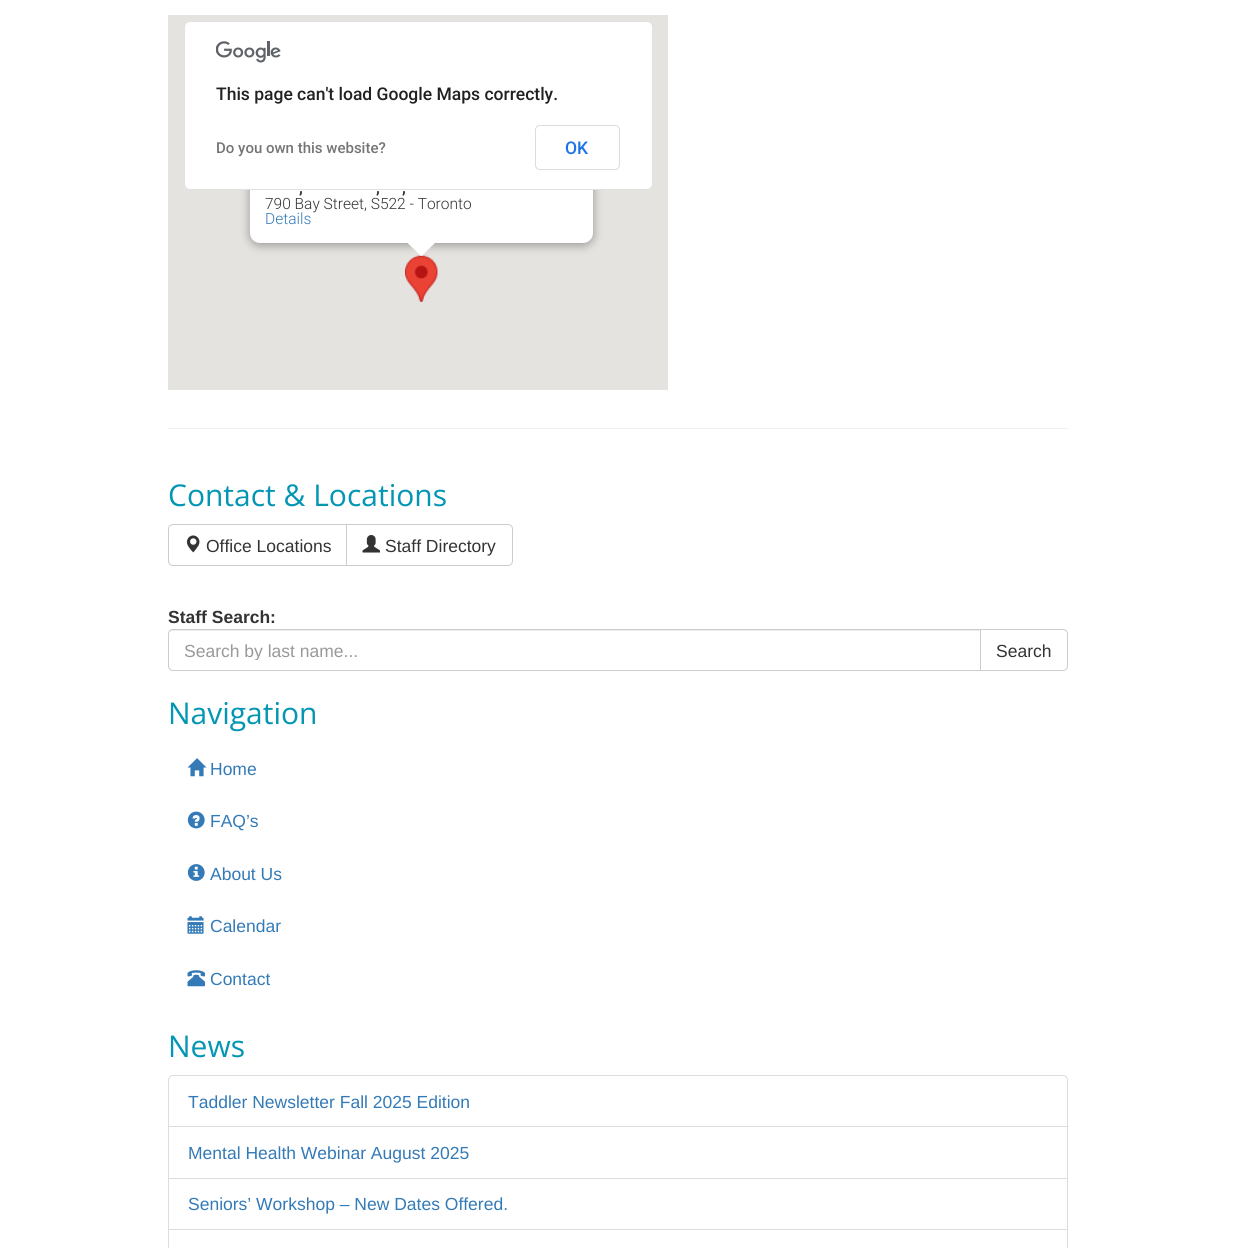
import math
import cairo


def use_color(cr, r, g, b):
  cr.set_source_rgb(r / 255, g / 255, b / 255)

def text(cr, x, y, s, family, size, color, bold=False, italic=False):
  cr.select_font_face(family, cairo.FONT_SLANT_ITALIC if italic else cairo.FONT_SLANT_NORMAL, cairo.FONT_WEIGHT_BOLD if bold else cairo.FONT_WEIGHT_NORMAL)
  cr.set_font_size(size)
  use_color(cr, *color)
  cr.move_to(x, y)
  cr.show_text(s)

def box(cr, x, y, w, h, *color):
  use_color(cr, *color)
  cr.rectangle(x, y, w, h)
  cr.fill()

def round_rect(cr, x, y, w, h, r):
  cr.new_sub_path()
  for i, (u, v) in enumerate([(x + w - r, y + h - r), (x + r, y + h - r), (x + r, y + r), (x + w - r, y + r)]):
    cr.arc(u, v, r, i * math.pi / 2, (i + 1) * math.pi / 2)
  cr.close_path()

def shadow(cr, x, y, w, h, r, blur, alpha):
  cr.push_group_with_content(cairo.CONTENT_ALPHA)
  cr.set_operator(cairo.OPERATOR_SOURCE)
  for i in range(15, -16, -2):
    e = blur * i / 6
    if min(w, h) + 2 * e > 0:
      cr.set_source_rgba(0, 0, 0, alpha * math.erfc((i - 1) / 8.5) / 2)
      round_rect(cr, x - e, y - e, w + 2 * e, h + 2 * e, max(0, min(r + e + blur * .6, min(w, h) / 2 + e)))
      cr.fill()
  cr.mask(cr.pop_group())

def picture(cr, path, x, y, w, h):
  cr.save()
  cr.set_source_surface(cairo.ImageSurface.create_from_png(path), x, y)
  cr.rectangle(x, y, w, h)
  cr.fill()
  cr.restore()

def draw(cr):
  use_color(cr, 255, 255, 255)
  cr.paint()
  box(cr, 168, 15, 500, 375, 229, 227, 223)
  picture(cr, "img_02.png", 405, 255, 33, 47)
  use_color(cr, 0, 0, 0)
  shadow(cr, 249, 106, 345, 140, 11, 4.5, 0.3)
  use_color(cr, 255, 255, 255)
  round_rect(cr, 250, 105, 343, 138, 10)
  cr.fill()
  round_rect(cr, 184, 21, 469, 169, 6)
  cr.fill()
  round_rect(cr, 184.5, 21.5, 468, 168, 5.5)
  cr.set_source_rgba(0, 0, 0, 0.12)
  cr.set_line_width(1)
  cr.stroke()
  picture(cr, "img_01.png", 216, 41, 65, 22)
  round_rect(cr, 535.5, 125.5, 84, 44, 4.5)
  use_color(cr, 218, 220, 224)
  cr.stroke()
  use_color(cr, 255, 255, 255)
  cr.new_path()
  cr.move_to(406, 241.5)
  cr.line_to(406, 241)
  cr.line_to(437, 241)
  cr.line_to(421.5, 256)
  cr.line_to(421, 256)
  cr.close_path()
  cr.fill()
  box(cr, 168, 428, 900, 1, 241, 241, 241)
  cr.new_path()
  cr.move_to(173, 524.5)
  cr.line_to(347.5, 524.5)
  cr.line_to(347.5, 565.5)
  cr.line_to(173, 565.5)
  cr.curve_to(170.5, 565.5, 168.5, 563.5, 168.5, 561)
  cr.line_to(168.5, 529)
  cr.curve_to(168.5, 526.5, 170.5, 524.5, 173, 524.5)
  cr.close_path()
  use_color(cr, 204, 204, 204)
  cr.stroke()
  picture(cr, "img_03.png", 187, 535, 13, 18)
  use_color(cr, 255, 255, 255)
  cr.new_path()
  cr.move_to(346.5, 524.5)
  cr.line_to(508, 524.5)
  cr.curve_to(510.5, 524.5, 512.5, 526.5, 512.5, 529)
  cr.line_to(512.5, 561)
  cr.curve_to(512.5, 563.5, 510.5, 565.5, 508, 565.5)
  cr.line_to(346.5, 565.5)
  cr.close_path()
  cr.fill_preserve()
  use_color(cr, 204, 204, 204)
  cr.stroke()
  picture(cr, "img_04.png", 362, 535, 18, 18)
  use_color(cr, 236, 236, 236)
  cr.new_path()
  cr.move_to(172, 631)
  cr.line_to(980, 631)
  cr.line_to(980, 630)
  cr.line_to(173, 630)
  cr.curve_to(170, 630, 169, 632, 169, 635)
  cr.curve_to(169, 633, 170, 631, 172, 631)
  cr.close_path()
  cr.fill()
  cr.new_path()
  cr.move_to(173, 629.5)
  cr.line_to(980.5, 629.5)
  cr.line_to(980.5, 670.5)
  cr.line_to(173, 670.5)
  cr.curve_to(170.5, 670.5, 168.5, 668.5, 168.5, 666)
  cr.line_to(168.5, 634)
  cr.curve_to(168.5, 631.5, 170.5, 629.5, 173, 629.5)
  cr.close_path()
  use_color(cr, 204, 204, 204)
  cr.stroke()
  use_color(cr, 255, 255, 255)
  cr.new_path()
  cr.move_to(980.5, 629.5)
  cr.line_to(1063, 629.5)
  cr.curve_to(1065.5, 629.5, 1067.5, 631.5, 1067.5, 634)
  cr.line_to(1067.5, 666)
  cr.curve_to(1067.5, 668.5, 1065.5, 670.5, 1063, 670.5)
  cr.line_to(980.5, 670.5)
  cr.close_path()
  cr.fill_preserve()
  use_color(cr, 204, 204, 204)
  cr.stroke()
  picture(cr, "img_05.png", 187, 758, 20, 19)
  picture(cr, "img_06.png", 187, 811, 18, 18)
  picture(cr, "img_07.png", 187, 864, 18, 17)
  picture(cr, "img_08.png", 187, 916, 17, 18)
  picture(cr, "img_09.png", 187, 970, 18, 17)
  cr.new_path()
  cr.move_to(173, 1075.5)
  cr.line_to(1063, 1075.5)
  cr.curve_to(1065.5, 1075.5, 1067.5, 1077.5, 1067.5, 1080)
  cr.line_to(1067.5, 1127.5)
  cr.line_to(168.5, 1127.5)
  cr.line_to(168.5, 1080)
  cr.curve_to(168.5, 1077.5, 170.5, 1075.5, 173, 1075.5)
  cr.close_path()
  use_color(cr, 221, 221, 221)
  cr.stroke()
  box(cr, 169, 1127, 898, 1, 255, 255, 255)
  cr.rectangle(168.5, 1126.5, 899, 52)
  use_color(cr, 221, 221, 221)
  cr.stroke()
  cr.rectangle(168.5, 1178.5, 899, 51)
  cr.stroke()
  cr.rectangle(168.5, 1229.5, 899, 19)
  cr.stroke()
  text(cr, 216, 100, "This page can't load Google Maps correctly.", "Roboto Medium", 17.5, (33, 33, 33))
  text(cr, 216, 153, "Do you own this website?", "Roboto Medium", 15, (117, 117, 117))
  text(cr, 565, 154, "OK", "Roboto Medium", 17.5, (26, 115, 232))
  text(cr, 299, 193, ",", "Roboto", 15.5, (51, 51, 51), bold=True)
  text(cr, 376, 193, ",", "Roboto", 15.5, (51, 51, 51), bold=True)
  text(cr, 402, 193, ",", "Roboto", 15.5, (51, 51, 51), bold=True)
  text(cr, 265, 209, "790 Bay Street, S522 - Toronto", "Roboto Light", 15.5, (51, 51, 51))
  text(cr, 265, 224, "Details", "Roboto Light", 15.5, (51, 122, 183))
  text(cr, 168, 506, "Contact & Locations", "Open Sans", 30, (2, 150, 179))
  text(cr, 206, 552, "Office Locations", "Liberation Sans", 17.5, (51, 51, 51))
  text(cr, 385, 552, "Staff Directory", "Liberation Sans", 17.5, (51, 51, 51))
  text(cr, 168, 623, "Staff Search:", "Liberation Sans", 17.5, (51, 51, 51), bold=True)
  cr.save()
  cr.rectangle(184, 640, 781, 20)
  cr.clip()
  text(cr, 184, 657, "Search by last name...", "Liberation Sans", 17.5, (153, 153, 153))
  cr.restore()
  text(cr, 996, 657, "Search", "Liberation Sans", 17.5, (51, 51, 51))
  text(cr, 168, 724, "Navigation", "Open Sans", 30, (2, 150, 179))
  text(cr, 210, 775, "Home", "Liberation Sans", 17.5, (51, 122, 183))
  text(cr, 210, 827, "FAQ’s", "Liberation Sans", 17.5, (51, 122, 183))
  text(cr, 210, 880, "About Us", "Liberation Sans", 17.5, (51, 122, 183))
  text(cr, 210, 932, "Calendar", "Liberation Sans", 17.5, (51, 122, 183))
  text(cr, 210, 985, "Contact", "Liberation Sans", 17.5, (51, 122, 183))
  text(cr, 168, 1057, "News", "Open Sans", 30, (2, 150, 179))
  text(cr, 188, 1108, "Taddler Newsletter Fall 2025 Edition", "Liberation Sans", 17.5, (51, 122, 183))
  text(cr, 188, 1159, "Mental Health Webinar August 2025", "Liberation Sans", 17.5, (51, 122, 183))
  text(cr, 188, 1210, "Seniors’ Workshop – New Dates Offered.", "Liberation Sans", 17.5, (51, 122, 183))


surface = cairo.ImageSurface(cairo.FORMAT_RGB24, 1235, 1248)
cr = cairo.Context(surface)
options = cairo.FontOptions()
options.set_hint_metrics(cairo.HINT_METRICS_OFF)
options.set_hint_style(cairo.HINT_STYLE_NONE)
cr.set_font_options(options)
cr.set_miter_limit(4)
draw(cr)
surface.write_to_png("out.png")
